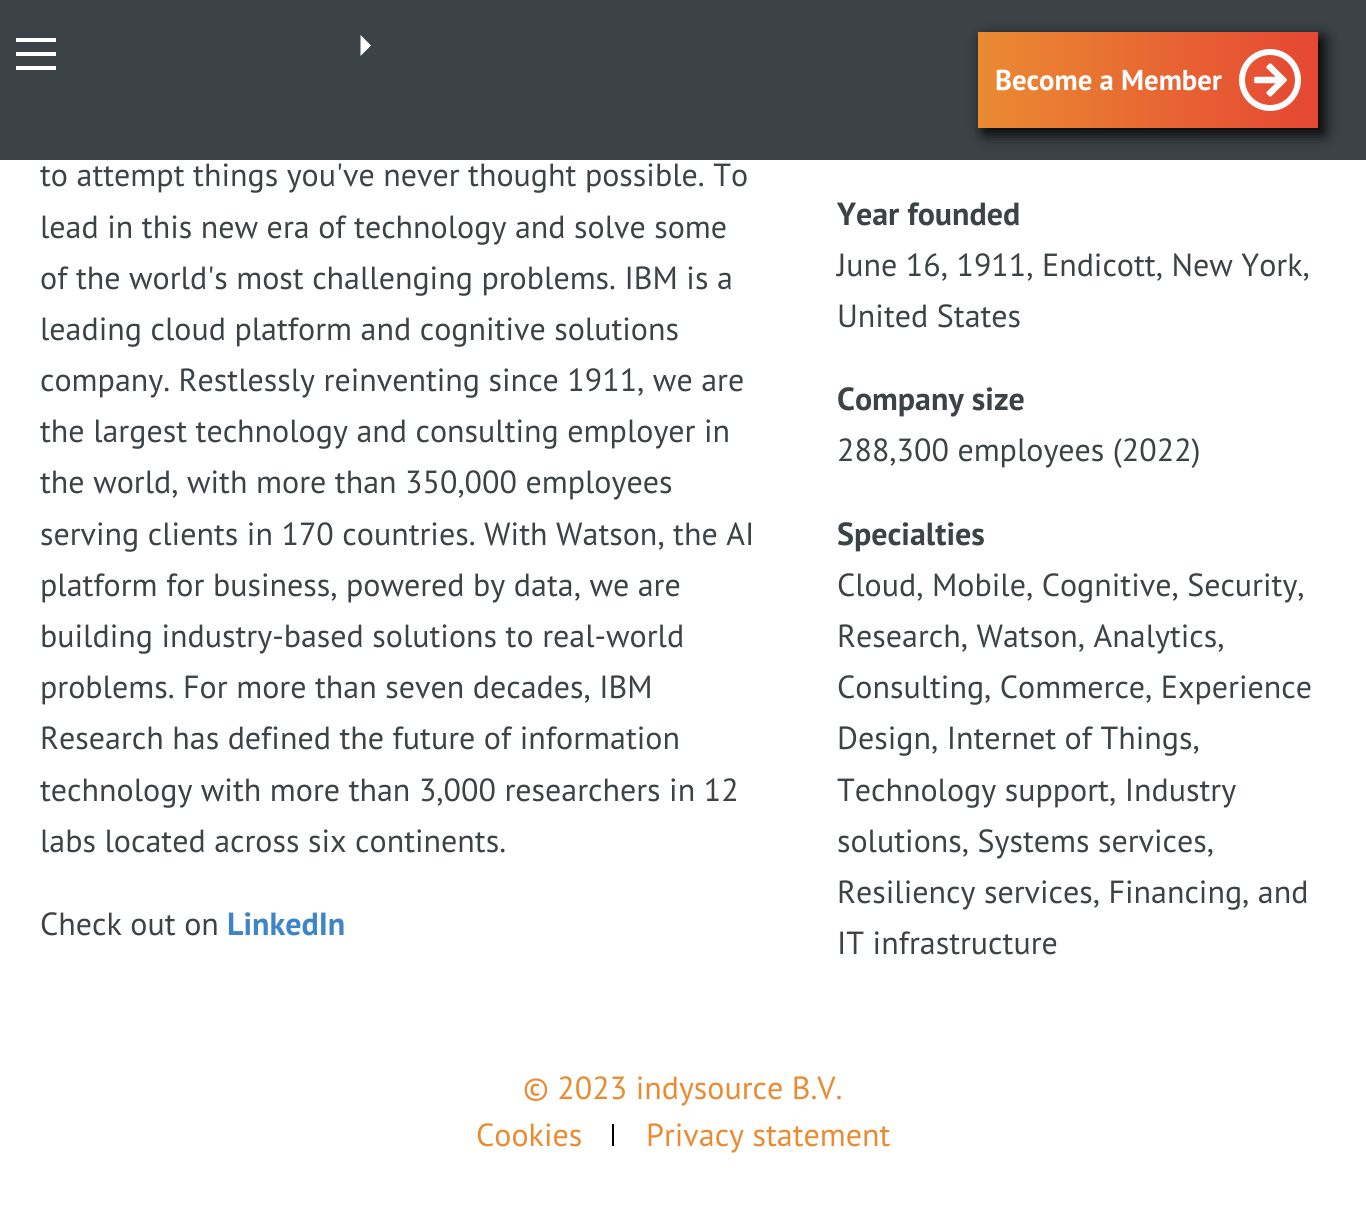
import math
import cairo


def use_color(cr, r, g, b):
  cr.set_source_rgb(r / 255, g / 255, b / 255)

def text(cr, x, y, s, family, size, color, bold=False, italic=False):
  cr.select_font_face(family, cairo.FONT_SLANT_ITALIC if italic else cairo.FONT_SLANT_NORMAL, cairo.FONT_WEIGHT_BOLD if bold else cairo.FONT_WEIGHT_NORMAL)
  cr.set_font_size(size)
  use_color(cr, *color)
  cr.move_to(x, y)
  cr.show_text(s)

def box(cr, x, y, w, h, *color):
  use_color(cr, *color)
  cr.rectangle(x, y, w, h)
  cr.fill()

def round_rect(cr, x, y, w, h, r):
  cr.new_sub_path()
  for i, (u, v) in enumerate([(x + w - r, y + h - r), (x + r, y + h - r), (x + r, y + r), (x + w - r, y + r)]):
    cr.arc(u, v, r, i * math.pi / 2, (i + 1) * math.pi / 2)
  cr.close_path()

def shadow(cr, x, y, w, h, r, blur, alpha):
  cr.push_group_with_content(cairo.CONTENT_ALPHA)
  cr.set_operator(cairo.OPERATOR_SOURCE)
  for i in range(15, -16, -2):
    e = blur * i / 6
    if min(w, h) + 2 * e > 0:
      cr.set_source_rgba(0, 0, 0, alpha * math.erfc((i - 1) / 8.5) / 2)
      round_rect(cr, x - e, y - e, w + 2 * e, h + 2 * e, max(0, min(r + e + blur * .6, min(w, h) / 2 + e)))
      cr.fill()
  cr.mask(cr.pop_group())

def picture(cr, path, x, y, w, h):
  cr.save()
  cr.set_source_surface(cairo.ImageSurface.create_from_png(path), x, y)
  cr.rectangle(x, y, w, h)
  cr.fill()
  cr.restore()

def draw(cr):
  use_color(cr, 255, 255, 255)
  cr.paint()
  box(cr, 0, 0, 1366, 160, 60, 67, 71)
  box(cr, 16, 66, 40, 4, 255, 255, 255)
  box(cr, 16, 52, 40, 4, 255, 255, 255)
  box(cr, 16, 38, 40, 4, 255, 255, 255)
  cr.new_path()
  cr.move_to(360.5, 35)
  cr.line_to(360.5, 56)
  cr.line_to(371, 45.5)
  cr.close_path()
  cr.fill()
  use_color(cr, 0, 0, 0)
  shadow(cr, 984, 38, 340, 96, 0, 8, 1)
  gradient = cairo.LinearGradient(978, 80, 1318, 80)
  gradient.add_color_stop_rgba(0, 0.918, 0.545, 0.196, 1)
  gradient.add_color_stop_rgba(1, 0.898, 0.278, 0.2, 1)
  cr.set_source(gradient)
  cr.rectangle(978, 32, 340, 96)
  cr.fill()
  picture(cr, "img_01.png", 1239, 49, 62, 62)
  box(cr, 612, 1124, 2, 22, 0, 0, 0)
  text(cr, 995, 90, "Become a Member", "PT Sans", 28.75, (255, 255, 255), bold=True)
  text(cr, 40, 186, "to attempt things you've never thought possible. To", "PT Sans", 32, (60, 67, 71))
  text(cr, 40, 238, "lead in this new era of technology and solve some", "PT Sans", 32, (60, 67, 71))
  text(cr, 40, 289, "of the world's most challenging problems. IBM is a", "PT Sans", 32, (60, 67, 71))
  text(cr, 40, 340, "leading cloud platform and cognitive solutions", "PT Sans", 32, (60, 67, 71))
  text(cr, 40, 391, "company. Restlessly reinventing since 1911, we are", "PT Sans", 32, (60, 67, 71))
  text(cr, 40, 442, "the largest technology and consulting employer in", "PT Sans", 32, (60, 67, 71))
  text(cr, 40, 493, "the world, with more than 350,000 employees", "PT Sans", 32, (60, 67, 71))
  text(cr, 40, 545, "serving clients in 170 countries. With Watson, the AI", "PT Sans", 32, (60, 67, 71))
  text(cr, 40, 596, "platform for business, powered by data, we are", "PT Sans", 32, (60, 67, 71))
  text(cr, 40, 647, "building industry-based solutions to real-world", "PT Sans", 32, (60, 67, 71))
  text(cr, 40, 698, "problems. For more than seven decades, IBM", "PT Sans", 32, (60, 67, 71))
  text(cr, 40, 749, "Research has defined the future of information", "PT Sans", 32, (60, 67, 71))
  text(cr, 40, 801, "technology with more than 3,000 researchers in 12", "PT Sans", 32, (60, 67, 71))
  text(cr, 40, 852, "labs located across six continents.", "PT Sans", 32, (60, 67, 71))
  text(cr, 40, 935, "Check out on", "PT Sans", 32, (60, 67, 71))
  text(cr, 227, 935, "LinkedIn", "PT Sans", 32, (61, 133, 198), bold=True)
  text(cr, 837, 225, "Year founded", "PT Sans", 32, (60, 67, 71), bold=True)
  text(cr, 837, 276, "June 16, 1911, Endicott, New York,", "PT Sans", 32, (60, 67, 71))
  text(cr, 837, 327, "United States", "PT Sans", 32, (60, 67, 71))
  text(cr, 837, 410, "Company size", "PT Sans", 32, (60, 67, 71), bold=True)
  text(cr, 837, 461, "288,300 employees (2022)", "PT Sans", 32, (60, 67, 71))
  text(cr, 837, 545, "Specialties", "PT Sans", 32, (60, 67, 71), bold=True)
  text(cr, 837, 596, "Cloud, Mobile, Cognitive, Security,", "PT Sans", 32, (60, 67, 71))
  text(cr, 837, 647, "Research, Watson, Analytics,", "PT Sans", 32, (60, 67, 71))
  text(cr, 837, 698, "Consulting, Commerce, Experience", "PT Sans", 32, (60, 67, 71))
  text(cr, 837, 749, "Design, Internet of Things,", "PT Sans", 32, (60, 67, 71))
  text(cr, 837, 801, "Technology support, Industry", "PT Sans", 32, (60, 67, 71))
  text(cr, 837, 852, "solutions, Systems services,", "PT Sans", 32, (60, 67, 71))
  text(cr, 837, 903, "Resiliency services, Financing, and", "PT Sans", 32, (60, 67, 71))
  text(cr, 837, 954, "IT infrastructure", "PT Sans", 32, (60, 67, 71))
  text(cr, 523, 1099, "© 2023 indysource B.V.", "PT Sans", 32, (234, 139, 50))
  text(cr, 476, 1146, "Cookies", "PT Sans", 32, (234, 139, 50))
  text(cr, 646, 1146, "Privacy statement", "PT Sans", 32, (234, 139, 50))


surface = cairo.ImageSurface(cairo.FORMAT_RGB24, 1366, 1229)
cr = cairo.Context(surface)
options = cairo.FontOptions()
options.set_hint_metrics(cairo.HINT_METRICS_OFF)
options.set_hint_style(cairo.HINT_STYLE_NONE)
cr.set_font_options(options)
cr.set_miter_limit(4)
draw(cr)
surface.write_to_png("out.png")
